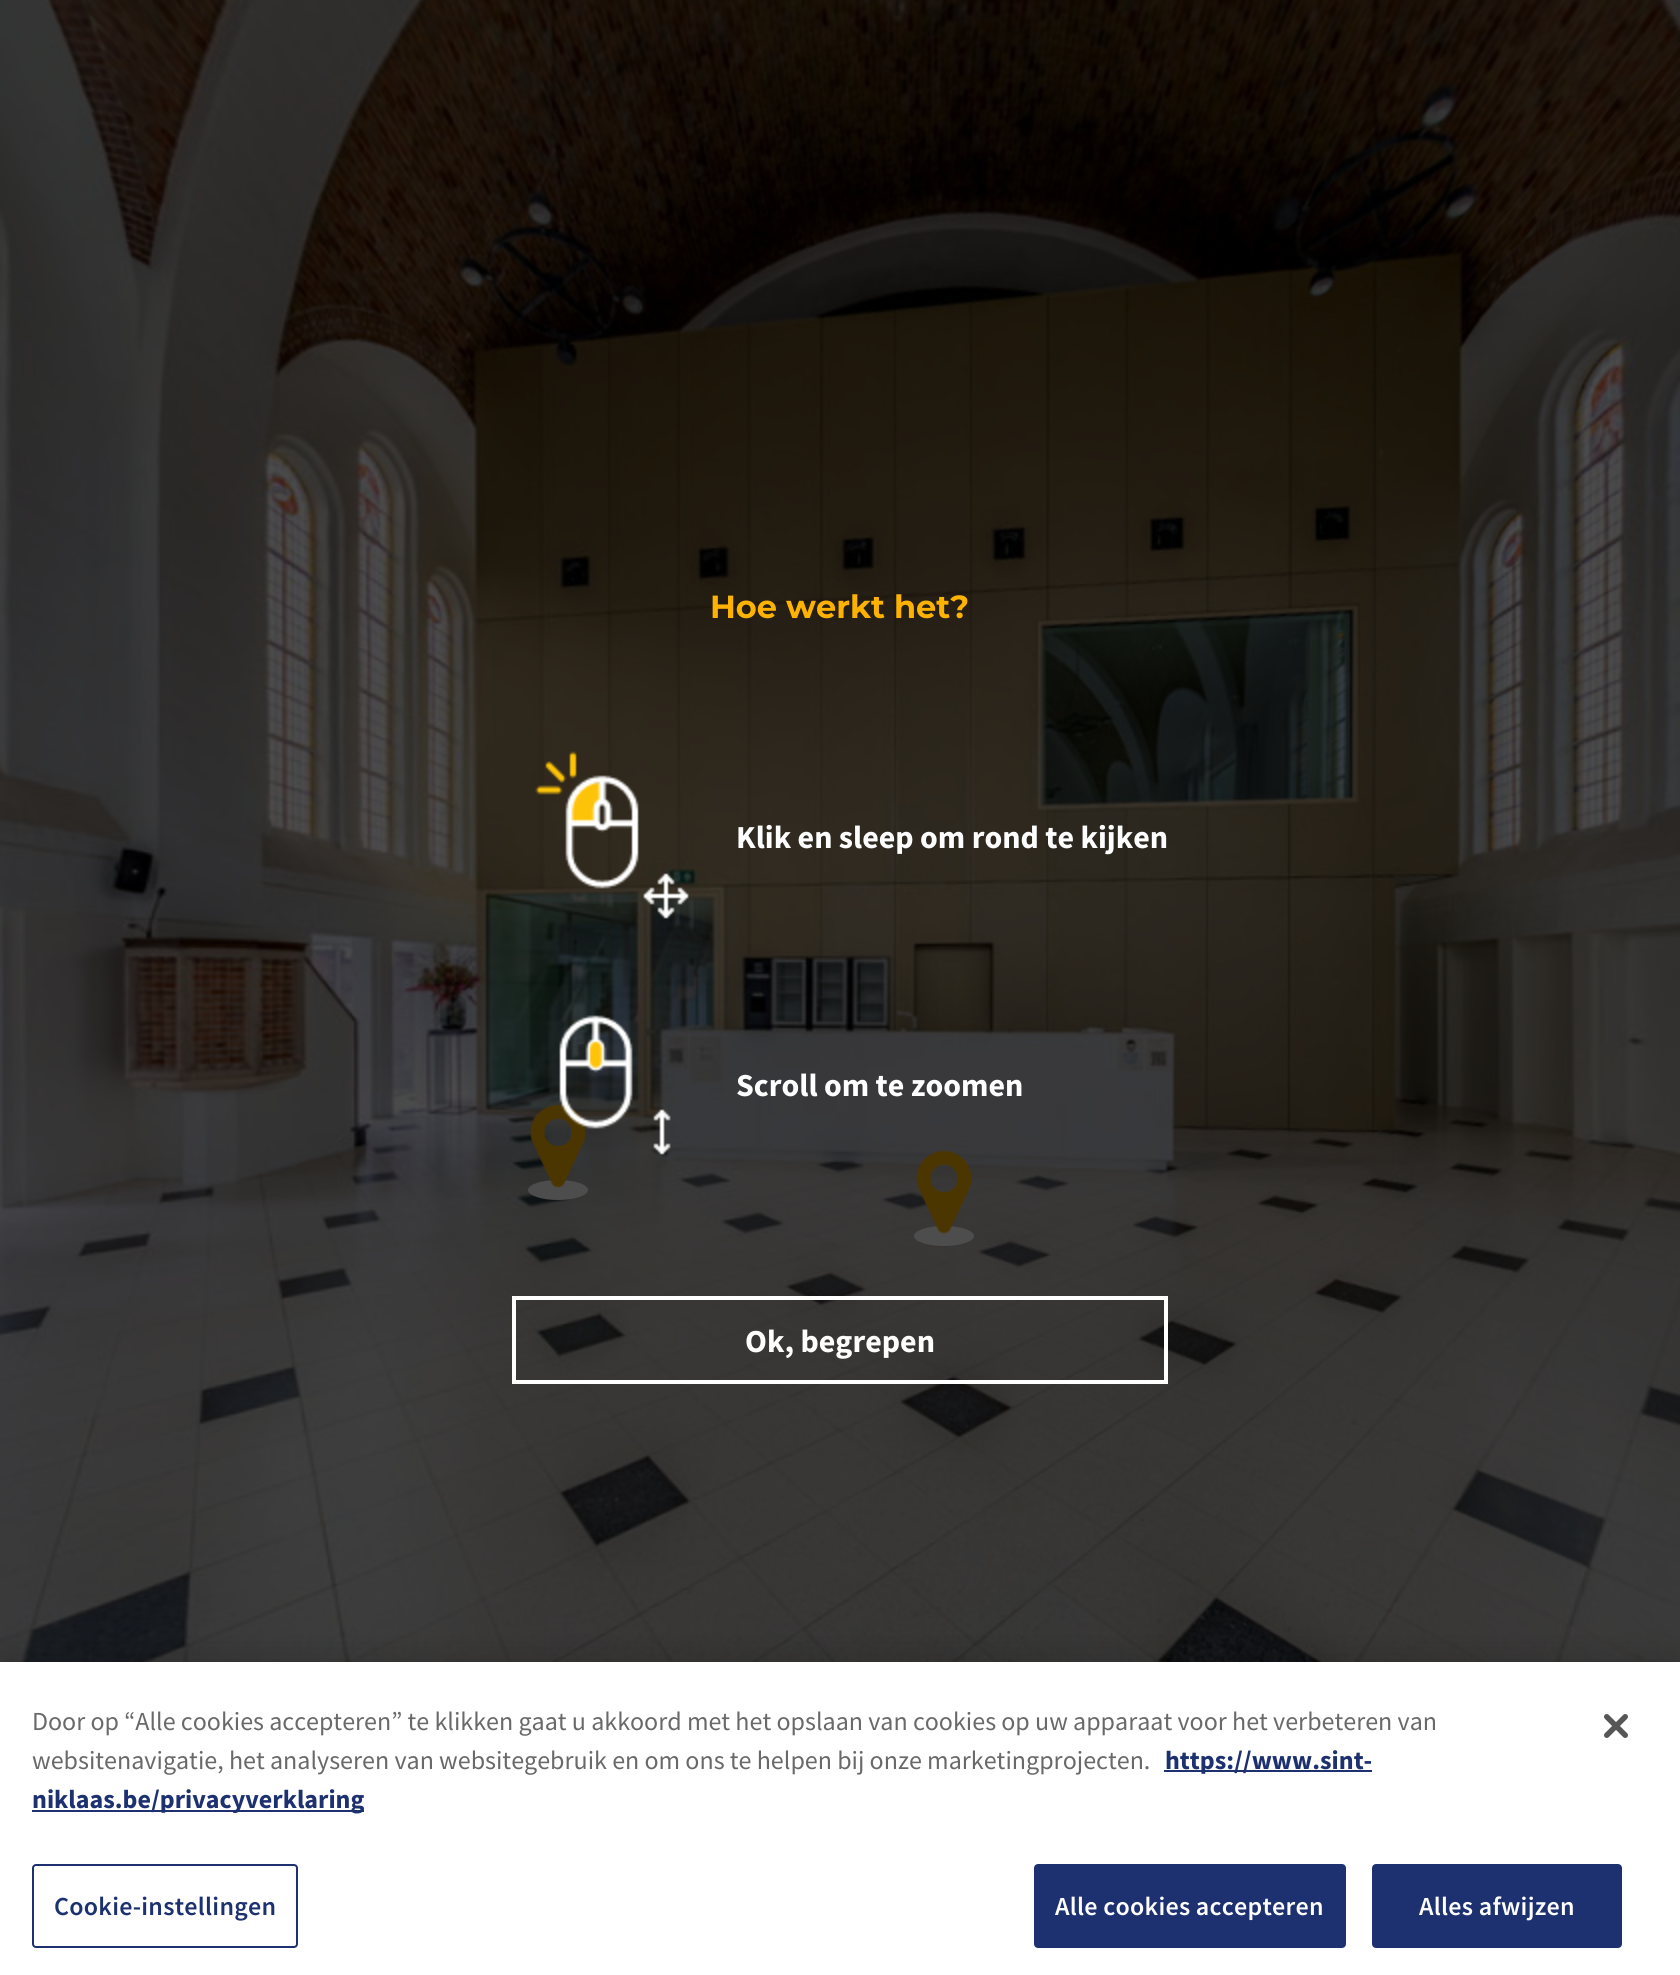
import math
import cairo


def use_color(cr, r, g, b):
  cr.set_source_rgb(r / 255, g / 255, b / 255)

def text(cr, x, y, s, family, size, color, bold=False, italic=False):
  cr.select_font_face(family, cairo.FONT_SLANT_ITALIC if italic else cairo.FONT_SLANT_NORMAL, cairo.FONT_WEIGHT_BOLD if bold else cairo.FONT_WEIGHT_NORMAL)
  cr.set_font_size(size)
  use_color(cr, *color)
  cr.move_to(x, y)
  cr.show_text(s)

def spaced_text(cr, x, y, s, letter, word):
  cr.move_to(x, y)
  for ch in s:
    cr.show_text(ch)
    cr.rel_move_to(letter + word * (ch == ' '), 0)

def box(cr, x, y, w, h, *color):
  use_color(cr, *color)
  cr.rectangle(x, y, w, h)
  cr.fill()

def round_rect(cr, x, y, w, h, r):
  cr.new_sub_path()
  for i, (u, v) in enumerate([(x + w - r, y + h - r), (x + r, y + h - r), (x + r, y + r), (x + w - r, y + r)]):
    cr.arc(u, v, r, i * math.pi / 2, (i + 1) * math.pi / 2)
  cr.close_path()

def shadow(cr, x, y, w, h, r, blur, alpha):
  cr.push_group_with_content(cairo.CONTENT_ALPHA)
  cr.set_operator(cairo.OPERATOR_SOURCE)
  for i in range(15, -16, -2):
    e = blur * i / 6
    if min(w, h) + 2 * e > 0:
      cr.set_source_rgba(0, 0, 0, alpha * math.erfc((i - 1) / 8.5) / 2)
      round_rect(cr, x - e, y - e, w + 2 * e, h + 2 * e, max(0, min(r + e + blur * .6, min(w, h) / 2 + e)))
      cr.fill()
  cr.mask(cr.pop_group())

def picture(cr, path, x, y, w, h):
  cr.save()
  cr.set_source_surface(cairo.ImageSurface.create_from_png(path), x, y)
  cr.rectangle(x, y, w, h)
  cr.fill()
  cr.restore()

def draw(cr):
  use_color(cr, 255, 255, 255)
  cr.paint()
  picture(cr, "img_01.png", 0, 0, 1680, 1662)
  use_color(cr, 77, 77, 77)
  cr.new_path()
  cr.move_to(558, 1180)
  cr.curve_to(574.5, 1180, 588, 1184.5, 588, 1190)
  cr.curve_to(588, 1195.5, 574.5, 1200, 558, 1200)
  cr.curve_to(541.5, 1200, 528, 1195.5, 528, 1190)
  cr.curve_to(528, 1184.5, 541.5, 1180, 558, 1180)
  cr.close_path()
  cr.fill()
  picture(cr, "img_02.png", 530, 1104, 56, 84)
  cr.new_path()
  cr.move_to(944, 1226)
  cr.curve_to(960.5, 1226, 974, 1230.5, 974, 1236)
  cr.curve_to(974, 1241.5, 960.5, 1246, 944, 1246)
  cr.curve_to(927.5, 1246, 914, 1241.5, 914, 1236)
  cr.curve_to(914, 1230.5, 927.5, 1226, 944, 1226)
  cr.close_path()
  cr.fill()
  picture(cr, "img_03.png", 916, 1150, 56, 84)
  picture(cr, "img_04.png", 535, 751, 154, 168)
  picture(cr, "img_05.png", 559, 1015, 112, 140)
  cr.rectangle(514, 1298, 652, 84)
  use_color(cr, 255, 255, 255)
  cr.set_line_width(4)
  cr.stroke()
  use_color(cr, 0, 0, 0)
  shadow(cr, 0, 1662, 1680, 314, 0, 18, 0.2)
  box(cr, 0, 1662, 1680, 313, 255, 255, 255)
  box(cr, 1164, 1770, 208, 2, 29, 49, 113)
  box(cr, 32, 1810, 332, 2, 29, 49, 113)
  round_rect(cr, 33, 1865, 264, 82, 3)
  cr.set_line_width(2)
  cr.stroke()
  round_rect(cr, 1035, 1865, 310, 82, 3)
  cr.fill_preserve()
  cr.stroke()
  round_rect(cr, 1373, 1865, 248, 82, 3)
  cr.fill_preserve()
  cr.stroke()
  picture(cr, "img_06.png", 1604, 1714, 24, 24)
  text(cr, 710, 618, "Hoe werkt het?", "Montserrat", 32, (255, 179, 0), bold=True)
  text(cr, 736, 848, "Klik en sleep om rond te kijken", "Source Sans Pro", 32, (255, 255, 255), bold=True)
  text(cr, 736, 1096, "Scroll om te zoomen", "Source Sans Pro", 32, (255, 255, 255), bold=True)
  text(cr, 745, 1352, "Ok, begrepen", "Source Sans Pro", 32, (255, 255, 255), bold=True)
  text(cr, 32, 1730, "Door op “Alle cookies accepteren” te klikken gaat u akkoord met het opslaan van cookies op uw apparaat voor het verbeteren van", "Source Sans Pro", 26.02, (105, 105, 105))
  text(cr, 32, 1769, "websitenavigatie, het analyseren van websitegebruik en om ons te helpen bij onze marketingprojecten.", "Source Sans Pro", 26.02, (105, 105, 105))
  text(cr, 1165, 1769, "https://www.sint-", "Source Sans Pro", 26.02, (29, 49, 113), bold=True)
  text(cr, 32, 1808, "niklaas.be/privacyverklaring", "Source Sans Pro", 26.02, (29, 49, 113), bold=True)
  cr.select_font_face("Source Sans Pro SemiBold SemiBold")
  spaced_text(cr, 54, 1915, "Cookie-instellingen", 0.25, 0)
  use_color(cr, 255, 255, 255)
  spaced_text(cr, 1055, 1915, "Alle cookies accepteren", 0.25, 0)
  spaced_text(cr, 1419, 1915, "Alles afwijzen", 0.25, 0)


surface = cairo.ImageSurface(cairo.FORMAT_RGB24, 1680, 1975)
cr = cairo.Context(surface)
options = cairo.FontOptions()
options.set_hint_metrics(cairo.HINT_METRICS_OFF)
options.set_hint_style(cairo.HINT_STYLE_NONE)
cr.set_font_options(options)
cr.set_miter_limit(4)
draw(cr)
surface.write_to_png("out.png")
